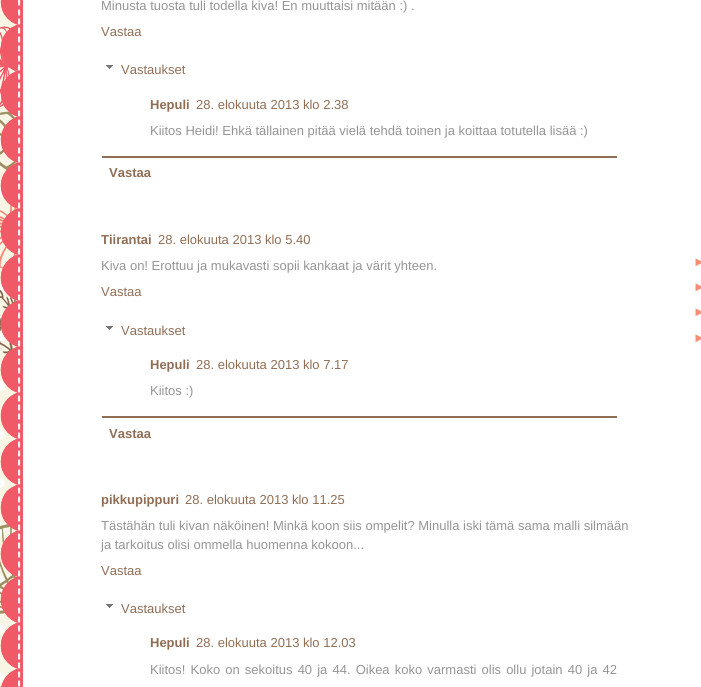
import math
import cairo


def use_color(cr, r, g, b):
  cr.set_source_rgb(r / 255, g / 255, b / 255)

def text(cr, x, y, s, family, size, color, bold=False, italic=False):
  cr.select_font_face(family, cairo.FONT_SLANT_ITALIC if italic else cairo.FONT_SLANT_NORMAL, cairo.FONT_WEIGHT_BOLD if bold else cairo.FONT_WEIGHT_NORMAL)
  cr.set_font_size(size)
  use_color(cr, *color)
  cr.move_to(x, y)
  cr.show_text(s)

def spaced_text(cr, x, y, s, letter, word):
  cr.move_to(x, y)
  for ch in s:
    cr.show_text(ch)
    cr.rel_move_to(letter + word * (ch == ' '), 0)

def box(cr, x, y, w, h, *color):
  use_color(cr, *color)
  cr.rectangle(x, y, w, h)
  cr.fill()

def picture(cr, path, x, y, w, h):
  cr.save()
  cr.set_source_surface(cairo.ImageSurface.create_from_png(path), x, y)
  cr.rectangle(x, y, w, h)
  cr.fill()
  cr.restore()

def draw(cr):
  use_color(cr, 255, 255, 255)
  cr.paint()
  picture(cr, "img_01.png", 0, 0, 18, 687)
  picture(cr, "img_02.png", 0, 0, 701, 687)
  picture(cr, "img_03.png", 106, 65, 7, 4)
  box(cr, 102, 156, 515, 2, 144, 110, 85)
  picture(cr, "img_03.png", 106, 326, 7, 4)
  box(cr, 102, 416, 515, 2, 144, 110, 85)
  picture(cr, "img_03.png", 106, 604, 7, 4)
  text(cr, 101, 10, "Minusta tuosta tuli todella kiva! En muuttaisi mitään :) .", "Liberation Sans", 13, (149, 149, 149))
  text(cr, 101, 36, "Vastaa", "Liberation Sans", 13, (144, 110, 85))
  text(cr, 121, 74, "Vastaukset", "Liberation Sans", 13, (144, 110, 85))
  text(cr, 150, 109, "Hepuli", "Liberation Sans", 13, (144, 110, 85), bold=True)
  text(cr, 196, 109, "28. elokuuta 2013 klo 2.38", "Liberation Sans", 13, (144, 110, 85))
  text(cr, 150, 135, "Kiitos Heidi! Ehkä tällainen pitää vielä tehdä toinen ja koittaa totutella lisää :)", "Liberation Sans", 13, (149, 149, 149))
  text(cr, 109, 177, "Vastaa", "Liberation Sans", 13, (144, 110, 85), bold=True)
  text(cr, 101, 244, "Tiirantai", "Liberation Sans", 13, (144, 110, 85), bold=True)
  text(cr, 158, 244, "28. elokuuta 2013 klo 5.40", "Liberation Sans", 13, (144, 110, 85))
  text(cr, 101, 270, "Kiva on! Erottuu ja mukavasti sopii kankaat ja värit yhteen.", "Liberation Sans", 13, (149, 149, 149))
  text(cr, 101, 296, "Vastaa", "Liberation Sans", 13, (144, 110, 85))
  text(cr, 121, 335, "Vastaukset", "Liberation Sans", 13, (144, 110, 85))
  text(cr, 150, 369, "Hepuli", "Liberation Sans", 13, (144, 110, 85), bold=True)
  text(cr, 196, 369, "28. elokuuta 2013 klo 7.17", "Liberation Sans", 13, (144, 110, 85))
  text(cr, 150, 395, "Kiitos :)", "Liberation Sans", 13, (149, 149, 149))
  text(cr, 109, 438, "Vastaa", "Liberation Sans", 13, (144, 110, 85), bold=True)
  text(cr, 101, 504, "pikkupippuri", "Liberation Sans", 13, (144, 110, 85), bold=True)
  text(cr, 185, 504, "28. elokuuta 2013 klo 11.25", "Liberation Sans", 13, (144, 110, 85))
  text(cr, 101, 530, "Tästähän tuli kivan näköinen! Minkä koon siis ompelit? Minulla iski tämä sama malli silmään", "Liberation Sans", 13, (149, 149, 149))
  text(cr, 101, 549, "ja tarkoitus olisi ommella huomenna kokoon...", "Liberation Sans", 13, (149, 149, 149))
  text(cr, 101, 575, "Vastaa", "Liberation Sans", 13, (144, 110, 85))
  text(cr, 121, 613, "Vastaukset", "Liberation Sans", 13, (144, 110, 85))
  text(cr, 150, 647, "Hepuli", "Liberation Sans", 13, (144, 110, 85), bold=True)
  text(cr, 196, 647, "28. elokuuta 2013 klo 12.03", "Liberation Sans", 13, (144, 110, 85))
  use_color(cr, 149, 149, 149)
  spaced_text(cr, 150, 674, "Kiitos! Koko on sekoitus 40 ja 44. Oikea koko varmasti olis ollu jotain 40 ja 42", 0, 1.5)
  text(cr, 693, 266, "►", "Liberation Sans", 13, (246, 141, 119))
  text(cr, 693, 291, "►", "Liberation Sans", 13, (246, 141, 119))
  text(cr, 693, 316, "►", "Liberation Sans", 13, (246, 141, 119))
  text(cr, 693, 342, "►", "Liberation Sans", 13, (246, 141, 119))


surface = cairo.ImageSurface(cairo.FORMAT_RGB24, 701, 687)
cr = cairo.Context(surface)
options = cairo.FontOptions()
options.set_hint_metrics(cairo.HINT_METRICS_OFF)
options.set_hint_style(cairo.HINT_STYLE_NONE)
cr.set_font_options(options)
cr.set_miter_limit(4)
draw(cr)
surface.write_to_png("out.png")
